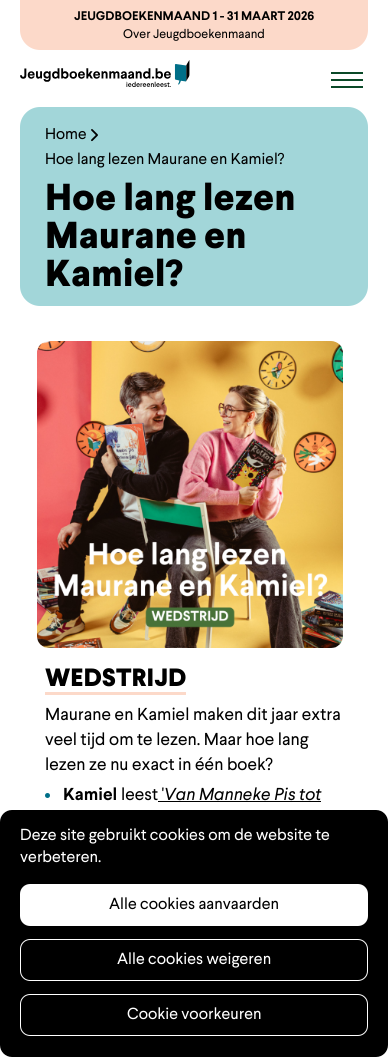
import math
import cairo


def use_color(cr, r, g, b):
  cr.set_source_rgb(r / 255, g / 255, b / 255)

def text(cr, x, y, s, family, size, color, bold=False, italic=False):
  cr.select_font_face(family, cairo.FONT_SLANT_ITALIC if italic else cairo.FONT_SLANT_NORMAL, cairo.FONT_WEIGHT_BOLD if bold else cairo.FONT_WEIGHT_NORMAL)
  cr.set_font_size(size)
  use_color(cr, *color)
  cr.move_to(x, y)
  cr.show_text(s)

def box(cr, x, y, w, h, *color):
  use_color(cr, *color)
  cr.rectangle(x, y, w, h)
  cr.fill()

def round_rect(cr, x, y, w, h, r):
  cr.new_sub_path()
  for i, (u, v) in enumerate([(x + w - r, y + h - r), (x + r, y + h - r), (x + r, y + r), (x + w - r, y + r)]):
    cr.arc(u, v, r, i * math.pi / 2, (i + 1) * math.pi / 2)
  cr.close_path()

def picture(cr, path, x, y, w, h):
  cr.save()
  cr.set_source_surface(cairo.ImageSurface.create_from_png(path), x, y)
  cr.rectangle(x, y, w, h)
  cr.fill()
  cr.restore()

def draw(cr):
  use_color(cr, 255, 255, 255)
  cr.paint()
  use_color(cr, 252, 217, 201)
  cr.new_path()
  cr.move_to(20, 0)
  cr.line_to(368, 0)
  cr.line_to(368, 30)
  cr.curve_to(368, 41, 359, 50, 348, 50)
  cr.line_to(40, 50)
  cr.curve_to(29, 50, 20, 41, 20, 30)
  cr.close_path()
  cr.fill()
  picture(cr, "img_01.png", 20, 60, 170, 27)
  box(cr, 331, 72, 32, 2, 10, 73, 40)
  box(cr, 331, 79, 32, 2, 10, 73, 40)
  box(cr, 331, 86, 32, 2, 10, 73, 40)
  use_color(cr, 162, 214, 217)
  cr.new_path()
  cr.move_to(40, 107)
  cr.line_to(348, 107)
  cr.curve_to(359, 107, 368, 116, 368, 127)
  cr.line_to(368, 182)
  cr.line_to(20, 182)
  cr.line_to(20, 127)
  cr.curve_to(20, 116, 29, 107, 40, 107)
  cr.close_path()
  cr.fill()
  picture(cr, "img_02.png", 91, 129, 7, 13)
  cr.new_path()
  cr.move_to(20, 182)
  cr.line_to(368, 182)
  cr.line_to(368, 286)
  cr.curve_to(368, 297, 359, 306, 348, 306)
  cr.line_to(40, 306)
  cr.curve_to(29, 306, 20, 297, 20, 286)
  cr.close_path()
  cr.fill()
  picture(cr, "img_03.png", 37, 341, 306, 307)
  box(cr, 45, 692, 141, 3, 252, 217, 201)
  use_color(cr, 0, 111, 136)
  cr.arc(47.5, 795.5, 2.5, 0, 2 * math.pi)
  cr.fill()
  box(cr, 158, 801, 163, 1, 0, 0, 0)
  round_rect(cr, 0, 810, 388, 247, 12)
  cr.fill()
  use_color(cr, 255, 255, 255)
  round_rect(cr, 20, 884, 348, 42, 10)
  cr.fill()
  round_rect(cr, 20.5, 939.5, 347, 41, 9.5)
  cr.set_line_width(1)
  cr.stroke()
  round_rect(cr, 20.5, 994.5, 347, 41, 9.5)
  cr.stroke()
  text(cr, 74, 20, "JEUGDBOEKENMAAND 1 - 31 MAART 2026", "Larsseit", 12.5, (0, 0, 0), bold=True)
  text(cr, 123, 38, "Over Jeugdboekenmaand", "Larsseit", 12.5, (0, 0, 0))
  text(cr, 45, 139, "Home", "Larsseit", 15.6, (0, 0, 0))
  text(cr, 45, 164, "Hoe lang lezen Maurane en Kamiel?", "Larsseit", 15.6, (0, 0, 0))
  text(cr, 45, 210, "Hoe lang lezen", "Larsseit ExtraBold", 37.5, (0, 0, 0))
  text(cr, 45, 248, "Maurane en", "Larsseit ExtraBold", 37.5, (0, 0, 0))
  text(cr, 45, 286, "Kamiel?", "Larsseit ExtraBold", 37.5, (0, 0, 0))
  text(cr, 45, 686, "WEDSTRIJD", "Larsseit ExtraBold", 25, (0, 0, 0))
  text(cr, 45, 720, "Maurane en Kamiel maken dit jaar extra", "Larsseit", 17.3, (0, 0, 0))
  text(cr, 45, 745, "veel tijd om te lezen. Maar hoe lang", "Larsseit", 17.3, (0, 0, 0))
  text(cr, 45, 770, "lezen ze nu exact in één boek?", "Larsseit", 17.3, (0, 0, 0))
  text(cr, 63, 800, "Kamiel", "Larsseit", 17.3, (0, 0, 0), bold=True)
  text(cr, 121, 800, "leest '", "Larsseit", 17.3, (0, 0, 0))
  text(cr, 164, 800, "Van Manneke Pis tot", "Larsseit", 17.3, (0, 0, 0), italic=True)
  text(cr, 20, 840, "Deze site gebruikt cookies om de website te", "Larsseit", 16, (255, 255, 255))
  text(cr, 20, 862, "verbeteren.", "Larsseit", 16, (255, 255, 255))
  text(cr, 109, 909, "Alle cookies aanvaarden", "Larsseit", 16, (0, 0, 0))
  text(cr, 117, 964, "Alle cookies weigeren", "Larsseit", 16, (255, 255, 255))
  text(cr, 127, 1019, "Cookie voorkeuren", "Larsseit", 16, (255, 255, 255))


surface = cairo.ImageSurface(cairo.FORMAT_RGB24, 388, 1057)
cr = cairo.Context(surface)
options = cairo.FontOptions()
options.set_hint_metrics(cairo.HINT_METRICS_OFF)
options.set_hint_style(cairo.HINT_STYLE_NONE)
cr.set_font_options(options)
cr.set_miter_limit(4)
draw(cr)
surface.write_to_png("out.png")
